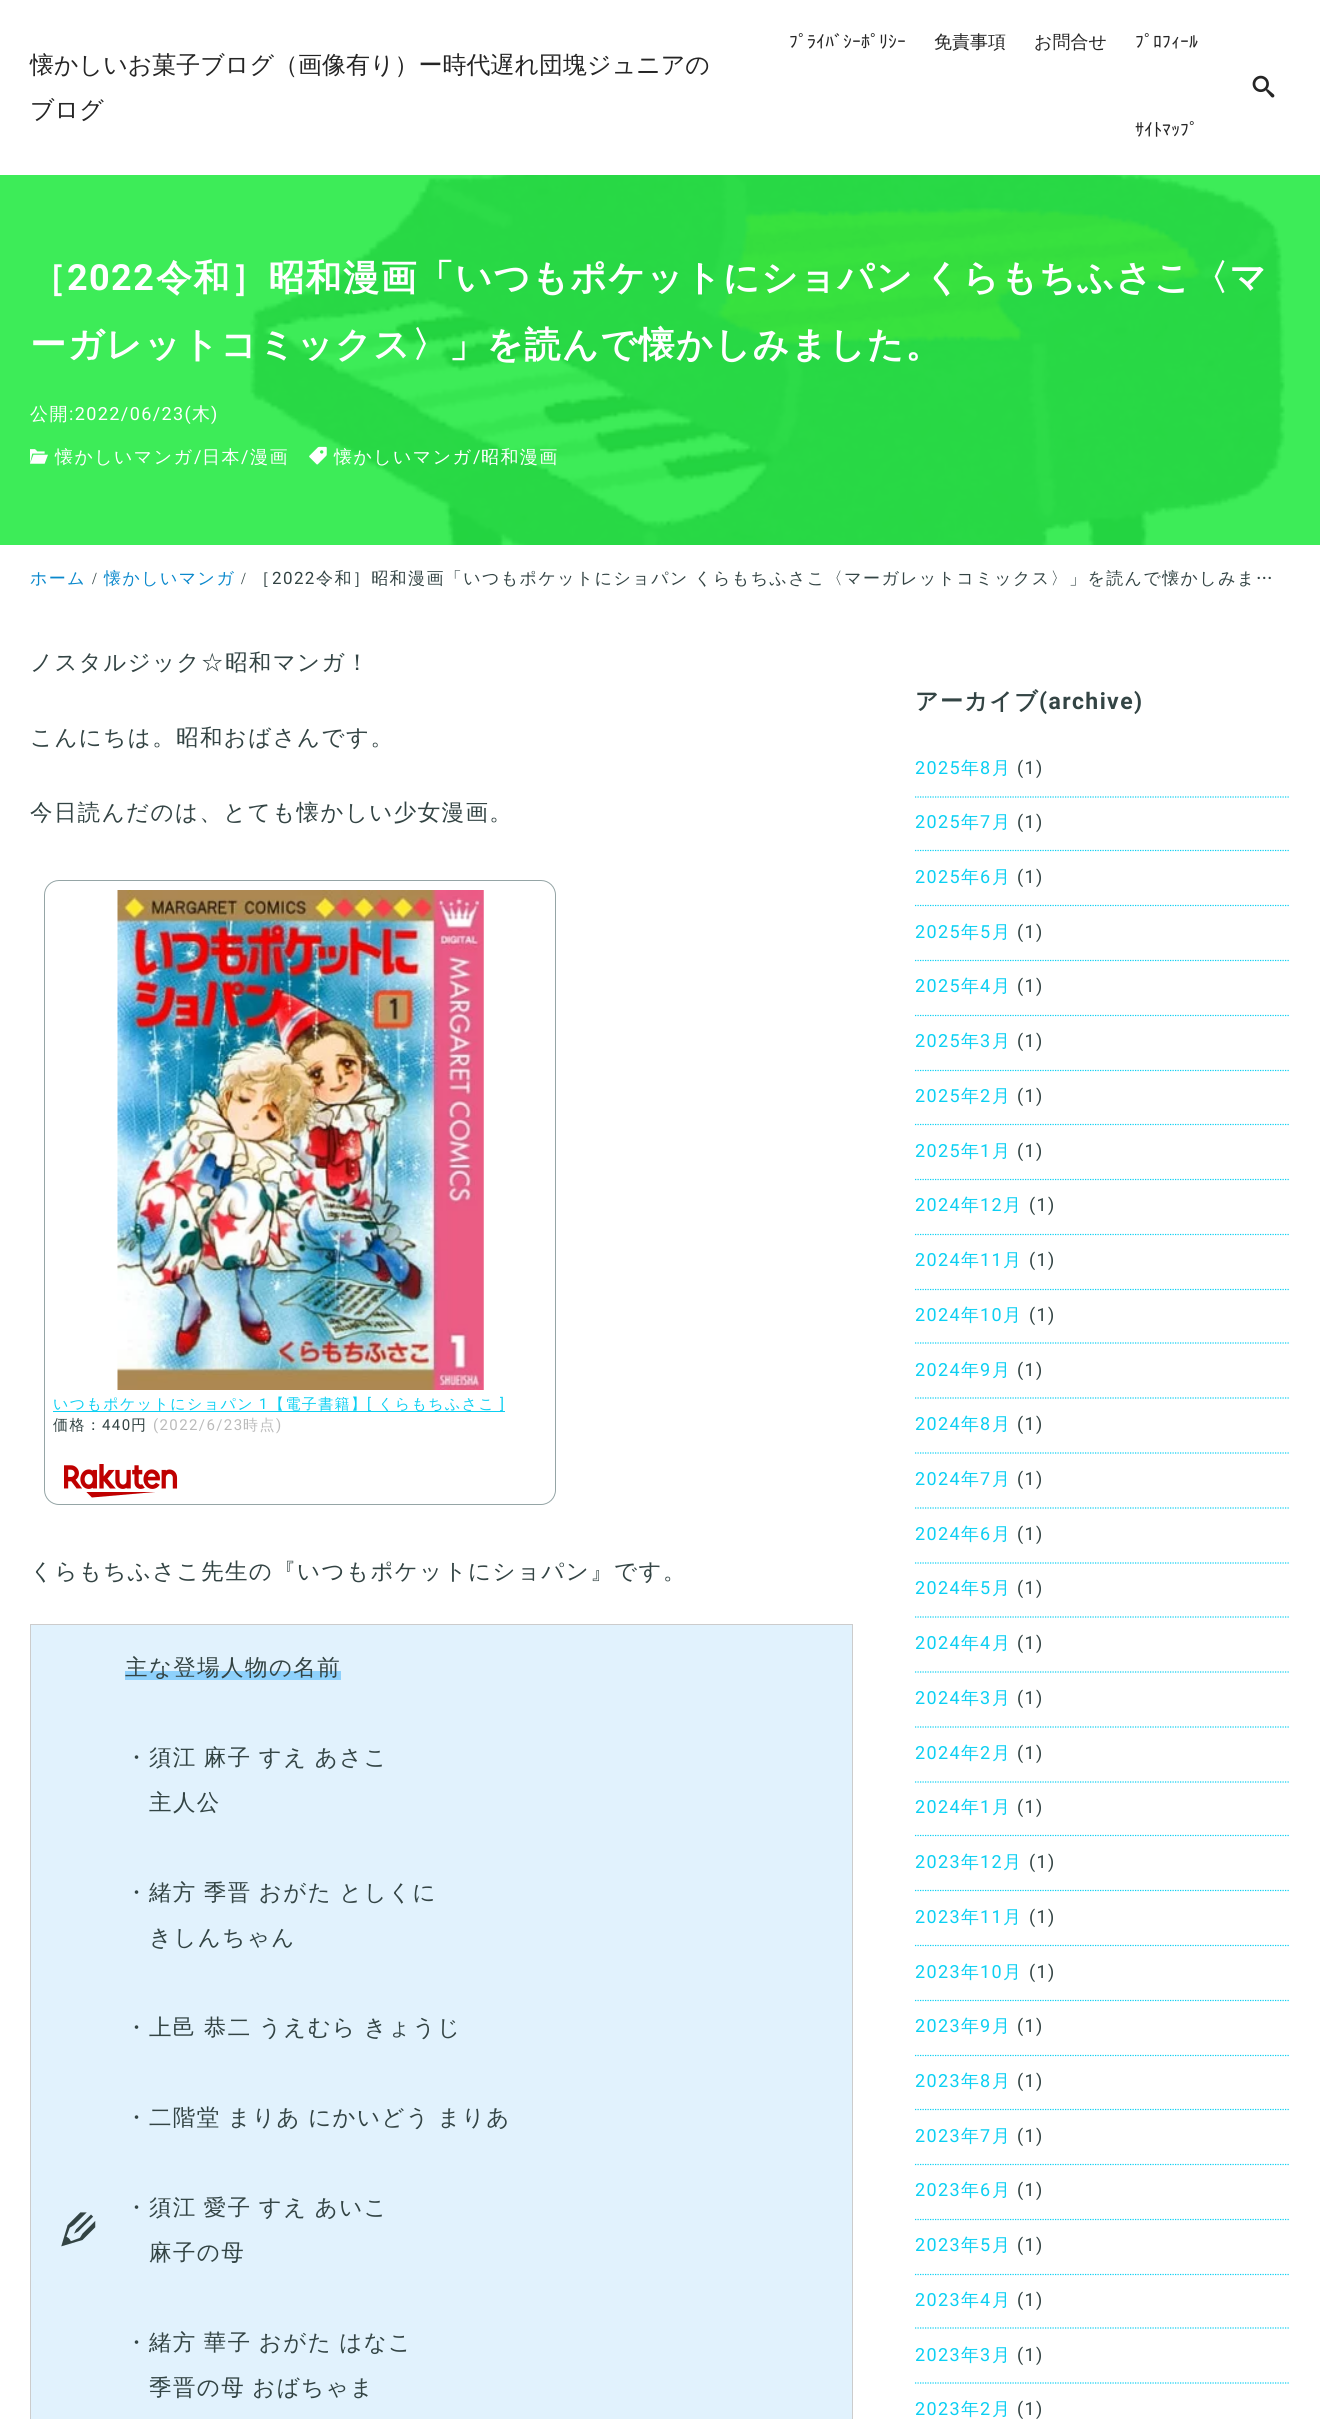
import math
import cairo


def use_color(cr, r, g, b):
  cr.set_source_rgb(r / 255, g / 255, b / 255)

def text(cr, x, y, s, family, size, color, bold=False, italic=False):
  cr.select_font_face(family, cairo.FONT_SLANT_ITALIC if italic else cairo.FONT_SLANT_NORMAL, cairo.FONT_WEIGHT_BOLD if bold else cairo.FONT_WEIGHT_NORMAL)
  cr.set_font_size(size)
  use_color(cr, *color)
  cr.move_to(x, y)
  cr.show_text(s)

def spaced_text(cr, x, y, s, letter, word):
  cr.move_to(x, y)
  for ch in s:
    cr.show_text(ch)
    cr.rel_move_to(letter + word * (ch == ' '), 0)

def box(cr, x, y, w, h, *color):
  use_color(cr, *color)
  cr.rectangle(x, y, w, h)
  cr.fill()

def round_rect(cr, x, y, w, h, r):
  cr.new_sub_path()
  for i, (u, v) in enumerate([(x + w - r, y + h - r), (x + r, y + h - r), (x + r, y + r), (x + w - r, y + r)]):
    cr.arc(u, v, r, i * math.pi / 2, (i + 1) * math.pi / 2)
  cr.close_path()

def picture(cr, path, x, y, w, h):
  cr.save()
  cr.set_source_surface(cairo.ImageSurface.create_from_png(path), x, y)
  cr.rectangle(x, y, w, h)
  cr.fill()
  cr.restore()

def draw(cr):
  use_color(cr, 255, 255, 255)
  cr.paint()
  box(cr, 0, 175, 1320, 370, 61, 236, 88)
  picture(cr, "img_01.png", 1252, 75, 23, 23)
  picture(cr, "img_02.png", 248, 175, 1037, 370)
  picture(cr, "img_03.png", 30, 449, 18, 15)
  picture(cr, "img_04.png", 309, 446, 18, 19)
  round_rect(cr, 44.5, 880.5, 511, 624, 14.5)
  use_color(cr, 149, 165, 166)
  cr.set_line_width(1)
  cr.stroke()
  picture(cr, "img_05.png", 117, 890, 367, 500)
  box(cr, 53, 1411, 452, 1, 12, 207, 242)
  picture(cr, "img_06.png", 64, 1464, 114, 34)
  use_color(cr, 225, 242, 253)
  cr.rectangle(30.5, 1624.5, 822, 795)
  cr.fill_preserve()
  use_color(cr, 204, 204, 204)
  cr.stroke()
  box(cr, 125, 1671, 216, 9, 142, 209, 252)
  picture(cr, "img_07.png", 61, 2212, 35, 35)
  cr.new_path()
  cr.move_to(915, 797)
  cr.line_to(1290, 797)
  use_color(cr, 12, 207, 242)
  cr.set_line_width(1.2)
  cr.set_dash([1.25, 1.25])
  cr.stroke()
  cr.new_path()
  cr.move_to(915, 850.5)
  cr.line_to(1290, 850.5)
  cr.stroke()
  cr.new_path()
  cr.move_to(915, 905.5)
  cr.line_to(1290, 905.5)
  cr.stroke()
  cr.new_path()
  cr.move_to(915, 960.5)
  cr.line_to(1290, 960.5)
  cr.stroke()
  cr.new_path()
  cr.move_to(915, 1015.5)
  cr.line_to(1290, 1015.5)
  cr.stroke()
  cr.new_path()
  cr.move_to(915, 1070.5)
  cr.line_to(1290, 1070.5)
  cr.stroke()
  cr.new_path()
  cr.move_to(915, 1124.5)
  cr.line_to(1290, 1124.5)
  cr.stroke()
  cr.new_path()
  cr.move_to(915, 1179.5)
  cr.line_to(1290, 1179.5)
  cr.stroke()
  cr.new_path()
  cr.move_to(915, 1234.5)
  cr.line_to(1290, 1234.5)
  cr.stroke()
  cr.new_path()
  cr.move_to(915, 1289.5)
  cr.line_to(1290, 1289.5)
  cr.stroke()
  cr.new_path()
  cr.move_to(915, 1343)
  cr.line_to(1290, 1343)
  cr.stroke()
  cr.new_path()
  cr.move_to(915, 1398)
  cr.line_to(1290, 1398)
  cr.stroke()
  cr.new_path()
  cr.move_to(915, 1453)
  cr.line_to(1290, 1453)
  cr.stroke()
  cr.new_path()
  cr.move_to(915, 1508)
  cr.line_to(1290, 1508)
  cr.stroke()
  cr.new_path()
  cr.move_to(915, 1563)
  cr.line_to(1290, 1563)
  cr.stroke()
  cr.new_path()
  cr.move_to(915, 1617)
  cr.line_to(1290, 1617)
  cr.stroke()
  cr.new_path()
  cr.move_to(915, 1672)
  cr.line_to(1290, 1672)
  cr.stroke()
  cr.new_path()
  cr.move_to(915, 1727)
  cr.line_to(1290, 1727)
  cr.stroke()
  cr.new_path()
  cr.move_to(915, 1782)
  cr.line_to(1290, 1782)
  cr.stroke()
  cr.new_path()
  cr.move_to(915, 1835.5)
  cr.line_to(1290, 1835.5)
  cr.stroke()
  cr.new_path()
  cr.move_to(915, 1890.5)
  cr.line_to(1290, 1890.5)
  cr.stroke()
  cr.new_path()
  cr.move_to(915, 1945.5)
  cr.line_to(1290, 1945.5)
  cr.stroke()
  cr.new_path()
  cr.move_to(915, 2000.5)
  cr.line_to(1290, 2000.5)
  cr.stroke()
  cr.new_path()
  cr.move_to(915, 2055.5)
  cr.line_to(1290, 2055.5)
  cr.stroke()
  cr.new_path()
  cr.move_to(915, 2109.5)
  cr.line_to(1290, 2109.5)
  cr.stroke()
  cr.new_path()
  cr.move_to(915, 2164.5)
  cr.line_to(1290, 2164.5)
  cr.stroke()
  cr.new_path()
  cr.move_to(915, 2219.5)
  cr.line_to(1290, 2219.5)
  cr.stroke()
  cr.new_path()
  cr.move_to(915, 2274.5)
  cr.line_to(1290, 2274.5)
  cr.stroke()
  cr.new_path()
  cr.move_to(915, 2328)
  cr.line_to(1290, 2328)
  cr.stroke()
  cr.new_path()
  cr.move_to(915, 2383)
  cr.line_to(1290, 2383)
  cr.stroke()
  text(cr, 30, 73, "懐かしいお菓子ブログ（画像有り）ー時代遅れ団塊ジュニアの", "WenQuanYi Zen Hei Medium", 24, (37, 37, 37))
  text(cr, 30, 118, "ブログ", "WenQuanYi Zen Hei Medium", 24, (37, 37, 37))
  text(cr, 789, 48, "ﾌﾟﾗｲﾊﾞｼｰﾎﾟﾘｼｰ", "IPAPGothic", 18, (37, 37, 37))
  text(cr, 934, 48, "免責事項", "WenQuanYi Zen Hei Medium", 18, (37, 37, 37))
  text(cr, 1034, 48, "お問合せ", "WenQuanYi Zen Hei Medium", 18, (37, 37, 37))
  text(cr, 1135, 48, "ﾌﾟﾛﾌｨｰﾙ", "IPAPGothic", 18, (37, 37, 37))
  text(cr, 1135, 136, "ｻｲﾄﾏｯﾌﾟ", "IPAPGothic", 18, (37, 37, 37))
  cr.select_font_face("WenQuanYi Zen Hei", cairo.FONT_SLANT_NORMAL, cairo.FONT_WEIGHT_BOLD)
  cr.set_font_size(36)
  use_color(cr, 255, 255, 255)
  spaced_text(cr, 30, 290, "［", 1.4, 0)
  cr.select_font_face("Roboto", cairo.FONT_SLANT_NORMAL, cairo.FONT_WEIGHT_BOLD)
  spaced_text(cr, 67, 290, "2022", 1.4, 0)
  cr.select_font_face("WenQuanYi Zen Hei", cairo.FONT_SLANT_NORMAL, cairo.FONT_WEIGHT_BOLD)
  spaced_text(cr, 156, 290, "令和］昭和漫画「いつもポケットにショパン くらもちふさこ〈マ", 1.4, -2)
  spaced_text(cr, 30, 357, "ーガレットコミックス〉」を読んで懐かしみました。", 1.4, 0)
  cr.select_font_face("WenQuanYi Zen Hei Medium")
  cr.set_font_size(18)
  spaced_text(cr, 30, 420, "公開", 1.4, 0)
  cr.select_font_face("Roboto")
  spaced_text(cr, 69, 420, ":2022/06/23(", 1.4, 0)
  cr.select_font_face("WenQuanYi Zen Hei Medium")
  spaced_text(cr, 192, 420, "木", 1.4, 0)
  cr.select_font_face("Roboto")
  spaced_text(cr, 211, 420, ")", 1.4, 0)
  cr.select_font_face("WenQuanYi Zen Hei Medium")
  spaced_text(cr, 55, 463, "懐かしいマンガ", 1.4, 0)
  cr.select_font_face("Roboto")
  spaced_text(cr, 194, 463, "/", 1.4, 0)
  cr.select_font_face("WenQuanYi Zen Hei Medium")
  spaced_text(cr, 202, 463, "日本", 1.4, 0)
  cr.select_font_face("Roboto")
  spaced_text(cr, 241, 463, "/", 1.4, 0)
  cr.select_font_face("WenQuanYi Zen Hei Medium")
  spaced_text(cr, 250, 463, "漫画", 1.4, 0)
  spaced_text(cr, 334, 463, "懐かしいマンガ", 1.4, 0)
  cr.select_font_face("Roboto")
  spaced_text(cr, 473, 463, "/", 1.4, 0)
  cr.select_font_face("WenQuanYi Zen Hei Medium")
  spaced_text(cr, 481, 463, "昭和漫画", 1.4, 0)
  cr.set_font_size(17)
  use_color(cr, 10, 136, 204)
  spaced_text(cr, 30, 584, "ホーム", 1.4, 0)
  cr.select_font_face("Liberation Serif")
  use_color(cr, 51, 68, 68)
  spaced_text(cr, 92, 584, "/", 1.4, 0)
  cr.select_font_face("WenQuanYi Zen Hei Medium")
  use_color(cr, 10, 136, 204)
  spaced_text(cr, 104, 584, "懐かしいマンガ", 1.4, 0)
  cr.select_font_face("Liberation Serif")
  use_color(cr, 51, 68, 68)
  spaced_text(cr, 241, 584, "/", 1.4, 0)
  cr.select_font_face("WenQuanYi Zen Hei Medium")
  spaced_text(cr, 253, 584, "［", 1.4, 0)
  cr.select_font_face("Roboto")
  spaced_text(cr, 272, 584, "2022", 1.4, 0)
  cr.select_font_face("WenQuanYi Zen Hei Medium")
  spaced_text(cr, 316, 584, "令和］昭和漫画「いつもポケットにショパン くらもちふさこ〈マーガレットコミックス〉」を読んで懐かしみま…", 1.4, -1)
  cr.set_font_size(22.5)
  spaced_text(cr, 30, 670, "ノスタルジック☆昭和マンガ！", 1.4, 0)
  spaced_text(cr, 30, 745, "こんにちは。昭和おばさんです。", 1.4, 0)
  spaced_text(cr, 30, 820, "今日読んだのは、とても懐かしい少女漫画。", 1.4, 0)
  cr.set_font_size(15)
  use_color(cr, 12, 207, 242)
  spaced_text(cr, 53, 1409, "いつもポケットにショパン", 1.4, 0)
  cr.select_font_face("Roboto")
  spaced_text(cr, 259, 1409, "1", 1.4, 0)
  cr.select_font_face("WenQuanYi Zen Hei Medium")
  spaced_text(cr, 269, 1409, "【電子書籍】", 1.4, 0)
  cr.select_font_face("Roboto")
  spaced_text(cr, 367, 1409, "[", 1.4, 0)
  cr.select_font_face("WenQuanYi Zen Hei Medium")
  spaced_text(cr, 378, 1409, "くらもちふさこ", 1.4, 0)
  cr.select_font_face("Roboto")
  spaced_text(cr, 500, 1409, "]", 1.4, 0)
  cr.select_font_face("WenQuanYi Zen Hei Medium")
  use_color(cr, 51, 68, 68)
  spaced_text(cr, 53, 1430, "価格：", 1.4, 0)
  cr.select_font_face("Roboto")
  spaced_text(cr, 102, 1430, "440", 1.4, 0)
  cr.select_font_face("WenQuanYi Zen Hei Medium")
  spaced_text(cr, 131, 1430, "円", 1.4, 0)
  cr.select_font_face("Roboto")
  use_color(cr, 187, 187, 187)
  spaced_text(cr, 153, 1430, "(2022/6/23", 1.4, 0)
  cr.select_font_face("WenQuanYi Zen Hei Medium")
  spaced_text(cr, 243, 1430, "時点", 1.4, 0)
  cr.select_font_face("Roboto")
  spaced_text(cr, 276, 1430, ")", 1.4, 0)
  cr.select_font_face("WenQuanYi Zen Hei Medium")
  cr.set_font_size(22.5)
  use_color(cr, 51, 68, 68)
  spaced_text(cr, 30, 1579, "くらもちふさこ先生の『いつもポケットにショパン』です。", 1.4, 0)
  spaced_text(cr, 125, 1675, "主な登場人物の名前", 1.4, 0)
  spaced_text(cr, 125, 1765, "・須江 麻子 すえ あさこ", 1.4, -1)
  spaced_text(cr, 149, 1810, "主人公", 1.4, 0)
  spaced_text(cr, 125, 1900, "・緒方 季晋 おがた としくに", 1.4, -1)
  spaced_text(cr, 149, 1945, "きしんちゃん", 1.4, 0)
  spaced_text(cr, 125, 2035, "・上邑 恭二 うえむら きょうじ", 1.4, -1)
  spaced_text(cr, 125, 2125, "・二階堂 まりあ にかいどう まりあ", 1.4, -1)
  spaced_text(cr, 125, 2215, "・須江 愛子 すえ あいこ", 1.4, -1)
  spaced_text(cr, 149, 2260, "麻子の母", 1.4, 0)
  spaced_text(cr, 125, 2350, "・緒方 華子 おがた はなこ", 1.4, -1)
  spaced_text(cr, 149, 2395, "季晋の母 おばちゃま", 1.4, -1)
  cr.select_font_face("WenQuanYi Zen Hei", cairo.FONT_SLANT_NORMAL, cairo.FONT_WEIGHT_BOLD)
  cr.set_font_size(23)
  spaced_text(cr, 915, 709, "アーカイブ", 1.4, 0)
  cr.select_font_face("Roboto", cairo.FONT_SLANT_NORMAL, cairo.FONT_WEIGHT_BOLD)
  spaced_text(cr, 1039, 709, "(archive)", 1.4, 0)
  cr.select_font_face("Roboto")
  cr.set_font_size(18)
  use_color(cr, 12, 207, 242)
  spaced_text(cr, 915, 774, "2025", 1.4, 0)
  cr.select_font_face("WenQuanYi Zen Hei Medium")
  spaced_text(cr, 961, 774, "年", 1.4, 0)
  cr.select_font_face("Roboto")
  spaced_text(cr, 980, 774, "8", 1.4, 0)
  cr.select_font_face("WenQuanYi Zen Hei Medium")
  spaced_text(cr, 992, 774, "月", 1.4, 0)
  cr.select_font_face("Roboto")
  use_color(cr, 51, 68, 68)
  spaced_text(cr, 1017, 774, "(1)", 1.4, 0)
  use_color(cr, 12, 207, 242)
  spaced_text(cr, 915, 828, "2025", 1.4, 0)
  cr.select_font_face("WenQuanYi Zen Hei Medium")
  spaced_text(cr, 961, 828, "年", 1.4, 0)
  cr.select_font_face("Roboto")
  spaced_text(cr, 980, 828, "7", 1.4, 0)
  cr.select_font_face("WenQuanYi Zen Hei Medium")
  spaced_text(cr, 992, 828, "月", 1.4, 0)
  cr.select_font_face("Roboto")
  use_color(cr, 51, 68, 68)
  spaced_text(cr, 1017, 828, "(1)", 1.4, 0)
  use_color(cr, 12, 207, 242)
  spaced_text(cr, 915, 883, "2025", 1.4, 0)
  cr.select_font_face("WenQuanYi Zen Hei Medium")
  spaced_text(cr, 961, 883, "年", 1.4, 0)
  cr.select_font_face("Roboto")
  spaced_text(cr, 980, 883, "6", 1.4, 0)
  cr.select_font_face("WenQuanYi Zen Hei Medium")
  spaced_text(cr, 992, 883, "月", 1.4, 0)
  cr.select_font_face("Roboto")
  use_color(cr, 51, 68, 68)
  spaced_text(cr, 1017, 883, "(1)", 1.4, 0)
  use_color(cr, 12, 207, 242)
  spaced_text(cr, 915, 938, "2025", 1.4, 0)
  cr.select_font_face("WenQuanYi Zen Hei Medium")
  spaced_text(cr, 961, 938, "年", 1.4, 0)
  cr.select_font_face("Roboto")
  spaced_text(cr, 980, 938, "5", 1.4, 0)
  cr.select_font_face("WenQuanYi Zen Hei Medium")
  spaced_text(cr, 992, 938, "月", 1.4, 0)
  cr.select_font_face("Roboto")
  use_color(cr, 51, 68, 68)
  spaced_text(cr, 1017, 938, "(1)", 1.4, 0)
  use_color(cr, 12, 207, 242)
  spaced_text(cr, 915, 992, "2025", 1.4, 0)
  cr.select_font_face("WenQuanYi Zen Hei Medium")
  spaced_text(cr, 961, 992, "年", 1.4, 0)
  cr.select_font_face("Roboto")
  spaced_text(cr, 980, 992, "4", 1.4, 0)
  cr.select_font_face("WenQuanYi Zen Hei Medium")
  spaced_text(cr, 992, 992, "月", 1.4, 0)
  cr.select_font_face("Roboto")
  use_color(cr, 51, 68, 68)
  spaced_text(cr, 1017, 992, "(1)", 1.4, 0)
  use_color(cr, 12, 207, 242)
  spaced_text(cr, 915, 1047, "2025", 1.4, 0)
  cr.select_font_face("WenQuanYi Zen Hei Medium")
  spaced_text(cr, 961, 1047, "年", 1.4, 0)
  cr.select_font_face("Roboto")
  spaced_text(cr, 980, 1047, "3", 1.4, 0)
  cr.select_font_face("WenQuanYi Zen Hei Medium")
  spaced_text(cr, 992, 1047, "月", 1.4, 0)
  cr.select_font_face("Roboto")
  use_color(cr, 51, 68, 68)
  spaced_text(cr, 1017, 1047, "(1)", 1.4, 0)
  use_color(cr, 12, 207, 242)
  spaced_text(cr, 915, 1102, "2025", 1.4, 0)
  cr.select_font_face("WenQuanYi Zen Hei Medium")
  spaced_text(cr, 961, 1102, "年", 1.4, 0)
  cr.select_font_face("Roboto")
  spaced_text(cr, 980, 1102, "2", 1.4, 0)
  cr.select_font_face("WenQuanYi Zen Hei Medium")
  spaced_text(cr, 992, 1102, "月", 1.4, 0)
  cr.select_font_face("Roboto")
  use_color(cr, 51, 68, 68)
  spaced_text(cr, 1017, 1102, "(1)", 1.4, 0)
  use_color(cr, 12, 207, 242)
  spaced_text(cr, 915, 1157, "2025", 1.4, 0)
  cr.select_font_face("WenQuanYi Zen Hei Medium")
  spaced_text(cr, 961, 1157, "年", 1.4, 0)
  cr.select_font_face("Roboto")
  spaced_text(cr, 980, 1157, "1", 1.4, 0)
  cr.select_font_face("WenQuanYi Zen Hei Medium")
  spaced_text(cr, 992, 1157, "月", 1.4, 0)
  cr.select_font_face("Roboto")
  use_color(cr, 51, 68, 68)
  spaced_text(cr, 1017, 1157, "(1)", 1.4, 0)
  use_color(cr, 12, 207, 242)
  spaced_text(cr, 915, 1211, "2024", 1.4, 0)
  cr.select_font_face("WenQuanYi Zen Hei Medium")
  spaced_text(cr, 961, 1211, "年", 1.4, 0)
  cr.select_font_face("Roboto")
  spaced_text(cr, 980, 1211, "12", 1.4, 0)
  cr.select_font_face("WenQuanYi Zen Hei Medium")
  spaced_text(cr, 1003, 1211, "月", 1.4, 0)
  cr.select_font_face("Roboto")
  use_color(cr, 51, 68, 68)
  spaced_text(cr, 1029, 1211, "(1)", 1.4, 0)
  use_color(cr, 12, 207, 242)
  spaced_text(cr, 915, 1266, "2024", 1.4, 0)
  cr.select_font_face("WenQuanYi Zen Hei Medium")
  spaced_text(cr, 961, 1266, "年", 1.4, 0)
  cr.select_font_face("Roboto")
  spaced_text(cr, 980, 1266, "11", 1.4, 0)
  cr.select_font_face("WenQuanYi Zen Hei Medium")
  spaced_text(cr, 1003, 1266, "月", 1.4, 0)
  cr.select_font_face("Roboto")
  use_color(cr, 51, 68, 68)
  spaced_text(cr, 1029, 1266, "(1)", 1.4, 0)
  use_color(cr, 12, 207, 242)
  spaced_text(cr, 915, 1321, "2024", 1.4, 0)
  cr.select_font_face("WenQuanYi Zen Hei Medium")
  spaced_text(cr, 961, 1321, "年", 1.4, 0)
  cr.select_font_face("Roboto")
  spaced_text(cr, 980, 1321, "10", 1.4, 0)
  cr.select_font_face("WenQuanYi Zen Hei Medium")
  spaced_text(cr, 1003, 1321, "月", 1.4, 0)
  cr.select_font_face("Roboto")
  use_color(cr, 51, 68, 68)
  spaced_text(cr, 1029, 1321, "(1)", 1.4, 0)
  use_color(cr, 12, 207, 242)
  spaced_text(cr, 915, 1376, "2024", 1.4, 0)
  cr.select_font_face("WenQuanYi Zen Hei Medium")
  spaced_text(cr, 961, 1376, "年", 1.4, 0)
  cr.select_font_face("Roboto")
  spaced_text(cr, 980, 1376, "9", 1.4, 0)
  cr.select_font_face("WenQuanYi Zen Hei Medium")
  spaced_text(cr, 992, 1376, "月", 1.4, 0)
  cr.select_font_face("Roboto")
  use_color(cr, 51, 68, 68)
  spaced_text(cr, 1017, 1376, "(1)", 1.4, 0)
  use_color(cr, 12, 207, 242)
  spaced_text(cr, 915, 1430, "2024", 1.4, 0)
  cr.select_font_face("WenQuanYi Zen Hei Medium")
  spaced_text(cr, 961, 1430, "年", 1.4, 0)
  cr.select_font_face("Roboto")
  spaced_text(cr, 980, 1430, "8", 1.4, 0)
  cr.select_font_face("WenQuanYi Zen Hei Medium")
  spaced_text(cr, 992, 1430, "月", 1.4, 0)
  cr.select_font_face("Roboto")
  use_color(cr, 51, 68, 68)
  spaced_text(cr, 1017, 1430, "(1)", 1.4, 0)
  use_color(cr, 12, 207, 242)
  spaced_text(cr, 915, 1485, "2024", 1.4, 0)
  cr.select_font_face("WenQuanYi Zen Hei Medium")
  spaced_text(cr, 961, 1485, "年", 1.4, 0)
  cr.select_font_face("Roboto")
  spaced_text(cr, 980, 1485, "7", 1.4, 0)
  cr.select_font_face("WenQuanYi Zen Hei Medium")
  spaced_text(cr, 992, 1485, "月", 1.4, 0)
  cr.select_font_face("Roboto")
  use_color(cr, 51, 68, 68)
  spaced_text(cr, 1017, 1485, "(1)", 1.4, 0)
  use_color(cr, 12, 207, 242)
  spaced_text(cr, 915, 1540, "2024", 1.4, 0)
  cr.select_font_face("WenQuanYi Zen Hei Medium")
  spaced_text(cr, 961, 1540, "年", 1.4, 0)
  cr.select_font_face("Roboto")
  spaced_text(cr, 980, 1540, "6", 1.4, 0)
  cr.select_font_face("WenQuanYi Zen Hei Medium")
  spaced_text(cr, 992, 1540, "月", 1.4, 0)
  cr.select_font_face("Roboto")
  use_color(cr, 51, 68, 68)
  spaced_text(cr, 1017, 1540, "(1)", 1.4, 0)
  use_color(cr, 12, 207, 242)
  spaced_text(cr, 915, 1594, "2024", 1.4, 0)
  cr.select_font_face("WenQuanYi Zen Hei Medium")
  spaced_text(cr, 961, 1594, "年", 1.4, 0)
  cr.select_font_face("Roboto")
  spaced_text(cr, 980, 1594, "5", 1.4, 0)
  cr.select_font_face("WenQuanYi Zen Hei Medium")
  spaced_text(cr, 992, 1594, "月", 1.4, 0)
  cr.select_font_face("Roboto")
  use_color(cr, 51, 68, 68)
  spaced_text(cr, 1017, 1594, "(1)", 1.4, 0)
  use_color(cr, 12, 207, 242)
  spaced_text(cr, 915, 1649, "2024", 1.4, 0)
  cr.select_font_face("WenQuanYi Zen Hei Medium")
  spaced_text(cr, 961, 1649, "年", 1.4, 0)
  cr.select_font_face("Roboto")
  spaced_text(cr, 980, 1649, "4", 1.4, 0)
  cr.select_font_face("WenQuanYi Zen Hei Medium")
  spaced_text(cr, 992, 1649, "月", 1.4, 0)
  cr.select_font_face("Roboto")
  use_color(cr, 51, 68, 68)
  spaced_text(cr, 1017, 1649, "(1)", 1.4, 0)
  use_color(cr, 12, 207, 242)
  spaced_text(cr, 915, 1704, "2024", 1.4, 0)
  cr.select_font_face("WenQuanYi Zen Hei Medium")
  spaced_text(cr, 961, 1704, "年", 1.4, 0)
  cr.select_font_face("Roboto")
  spaced_text(cr, 980, 1704, "3", 1.4, 0)
  cr.select_font_face("WenQuanYi Zen Hei Medium")
  spaced_text(cr, 992, 1704, "月", 1.4, 0)
  cr.select_font_face("Roboto")
  use_color(cr, 51, 68, 68)
  spaced_text(cr, 1017, 1704, "(1)", 1.4, 0)
  use_color(cr, 12, 207, 242)
  spaced_text(cr, 915, 1759, "2024", 1.4, 0)
  cr.select_font_face("WenQuanYi Zen Hei Medium")
  spaced_text(cr, 961, 1759, "年", 1.4, 0)
  cr.select_font_face("Roboto")
  spaced_text(cr, 980, 1759, "2", 1.4, 0)
  cr.select_font_face("WenQuanYi Zen Hei Medium")
  spaced_text(cr, 992, 1759, "月", 1.4, 0)
  cr.select_font_face("Roboto")
  use_color(cr, 51, 68, 68)
  spaced_text(cr, 1017, 1759, "(1)", 1.4, 0)
  use_color(cr, 12, 207, 242)
  spaced_text(cr, 915, 1813, "2024", 1.4, 0)
  cr.select_font_face("WenQuanYi Zen Hei Medium")
  spaced_text(cr, 961, 1813, "年", 1.4, 0)
  cr.select_font_face("Roboto")
  spaced_text(cr, 980, 1813, "1", 1.4, 0)
  cr.select_font_face("WenQuanYi Zen Hei Medium")
  spaced_text(cr, 992, 1813, "月", 1.4, 0)
  cr.select_font_face("Roboto")
  use_color(cr, 51, 68, 68)
  spaced_text(cr, 1017, 1813, "(1)", 1.4, 0)
  use_color(cr, 12, 207, 242)
  spaced_text(cr, 915, 1868, "2023", 1.4, 0)
  cr.select_font_face("WenQuanYi Zen Hei Medium")
  spaced_text(cr, 961, 1868, "年", 1.4, 0)
  cr.select_font_face("Roboto")
  spaced_text(cr, 980, 1868, "12", 1.4, 0)
  cr.select_font_face("WenQuanYi Zen Hei Medium")
  spaced_text(cr, 1003, 1868, "月", 1.4, 0)
  cr.select_font_face("Roboto")
  use_color(cr, 51, 68, 68)
  spaced_text(cr, 1029, 1868, "(1)", 1.4, 0)
  use_color(cr, 12, 207, 242)
  spaced_text(cr, 915, 1923, "2023", 1.4, 0)
  cr.select_font_face("WenQuanYi Zen Hei Medium")
  spaced_text(cr, 961, 1923, "年", 1.4, 0)
  cr.select_font_face("Roboto")
  spaced_text(cr, 980, 1923, "11", 1.4, 0)
  cr.select_font_face("WenQuanYi Zen Hei Medium")
  spaced_text(cr, 1003, 1923, "月", 1.4, 0)
  cr.select_font_face("Roboto")
  use_color(cr, 51, 68, 68)
  spaced_text(cr, 1029, 1923, "(1)", 1.4, 0)
  use_color(cr, 12, 207, 242)
  spaced_text(cr, 915, 1978, "2023", 1.4, 0)
  cr.select_font_face("WenQuanYi Zen Hei Medium")
  spaced_text(cr, 961, 1978, "年", 1.4, 0)
  cr.select_font_face("Roboto")
  spaced_text(cr, 980, 1978, "10", 1.4, 0)
  cr.select_font_face("WenQuanYi Zen Hei Medium")
  spaced_text(cr, 1003, 1978, "月", 1.4, 0)
  cr.select_font_face("Roboto")
  use_color(cr, 51, 68, 68)
  spaced_text(cr, 1029, 1978, "(1)", 1.4, 0)
  use_color(cr, 12, 207, 242)
  spaced_text(cr, 915, 2032, "2023", 1.4, 0)
  cr.select_font_face("WenQuanYi Zen Hei Medium")
  spaced_text(cr, 961, 2032, "年", 1.4, 0)
  cr.select_font_face("Roboto")
  spaced_text(cr, 980, 2032, "9", 1.4, 0)
  cr.select_font_face("WenQuanYi Zen Hei Medium")
  spaced_text(cr, 992, 2032, "月", 1.4, 0)
  cr.select_font_face("Roboto")
  use_color(cr, 51, 68, 68)
  spaced_text(cr, 1017, 2032, "(1)", 1.4, 0)
  use_color(cr, 12, 207, 242)
  spaced_text(cr, 915, 2087, "2023", 1.4, 0)
  cr.select_font_face("WenQuanYi Zen Hei Medium")
  spaced_text(cr, 961, 2087, "年", 1.4, 0)
  cr.select_font_face("Roboto")
  spaced_text(cr, 980, 2087, "8", 1.4, 0)
  cr.select_font_face("WenQuanYi Zen Hei Medium")
  spaced_text(cr, 992, 2087, "月", 1.4, 0)
  cr.select_font_face("Roboto")
  use_color(cr, 51, 68, 68)
  spaced_text(cr, 1017, 2087, "(1)", 1.4, 0)
  use_color(cr, 12, 207, 242)
  spaced_text(cr, 915, 2142, "2023", 1.4, 0)
  cr.select_font_face("WenQuanYi Zen Hei Medium")
  spaced_text(cr, 961, 2142, "年", 1.4, 0)
  cr.select_font_face("Roboto")
  spaced_text(cr, 980, 2142, "7", 1.4, 0)
  cr.select_font_face("WenQuanYi Zen Hei Medium")
  spaced_text(cr, 992, 2142, "月", 1.4, 0)
  cr.select_font_face("Roboto")
  use_color(cr, 51, 68, 68)
  spaced_text(cr, 1017, 2142, "(1)", 1.4, 0)
  use_color(cr, 12, 207, 242)
  spaced_text(cr, 915, 2196, "2023", 1.4, 0)
  cr.select_font_face("WenQuanYi Zen Hei Medium")
  spaced_text(cr, 961, 2196, "年", 1.4, 0)
  cr.select_font_face("Roboto")
  spaced_text(cr, 980, 2196, "6", 1.4, 0)
  cr.select_font_face("WenQuanYi Zen Hei Medium")
  spaced_text(cr, 992, 2196, "月", 1.4, 0)
  cr.select_font_face("Roboto")
  use_color(cr, 51, 68, 68)
  spaced_text(cr, 1017, 2196, "(1)", 1.4, 0)
  use_color(cr, 12, 207, 242)
  spaced_text(cr, 915, 2251, "2023", 1.4, 0)
  cr.select_font_face("WenQuanYi Zen Hei Medium")
  spaced_text(cr, 961, 2251, "年", 1.4, 0)
  cr.select_font_face("Roboto")
  spaced_text(cr, 980, 2251, "5", 1.4, 0)
  cr.select_font_face("WenQuanYi Zen Hei Medium")
  spaced_text(cr, 992, 2251, "月", 1.4, 0)
  cr.select_font_face("Roboto")
  use_color(cr, 51, 68, 68)
  spaced_text(cr, 1017, 2251, "(1)", 1.4, 0)
  use_color(cr, 12, 207, 242)
  spaced_text(cr, 915, 2306, "2023", 1.4, 0)
  cr.select_font_face("WenQuanYi Zen Hei Medium")
  spaced_text(cr, 961, 2306, "年", 1.4, 0)
  cr.select_font_face("Roboto")
  spaced_text(cr, 980, 2306, "4", 1.4, 0)
  cr.select_font_face("WenQuanYi Zen Hei Medium")
  spaced_text(cr, 992, 2306, "月", 1.4, 0)
  cr.select_font_face("Roboto")
  use_color(cr, 51, 68, 68)
  spaced_text(cr, 1017, 2306, "(1)", 1.4, 0)
  use_color(cr, 12, 207, 242)
  spaced_text(cr, 915, 2361, "2023", 1.4, 0)
  cr.select_font_face("WenQuanYi Zen Hei Medium")
  spaced_text(cr, 961, 2361, "年", 1.4, 0)
  cr.select_font_face("Roboto")
  spaced_text(cr, 980, 2361, "3", 1.4, 0)
  cr.select_font_face("WenQuanYi Zen Hei Medium")
  spaced_text(cr, 992, 2361, "月", 1.4, 0)
  cr.select_font_face("Roboto")
  use_color(cr, 51, 68, 68)
  spaced_text(cr, 1017, 2361, "(1)", 1.4, 0)
  use_color(cr, 12, 207, 242)
  spaced_text(cr, 915, 2415, "2023", 1.4, 0)
  cr.select_font_face("WenQuanYi Zen Hei Medium")
  spaced_text(cr, 961, 2415, "年", 1.4, 0)
  cr.select_font_face("Roboto")
  spaced_text(cr, 980, 2415, "2", 1.4, 0)
  cr.select_font_face("WenQuanYi Zen Hei Medium")
  spaced_text(cr, 992, 2415, "月", 1.4, 0)
  cr.select_font_face("Roboto")
  use_color(cr, 51, 68, 68)
  spaced_text(cr, 1017, 2415, "(1)", 1.4, 0)


surface = cairo.ImageSurface(cairo.FORMAT_RGB24, 1320, 2419)
cr = cairo.Context(surface)
options = cairo.FontOptions()
options.set_hint_metrics(cairo.HINT_METRICS_OFF)
options.set_hint_style(cairo.HINT_STYLE_NONE)
cr.set_font_options(options)
cr.set_miter_limit(4)
draw(cr)
surface.write_to_png("out.png")
